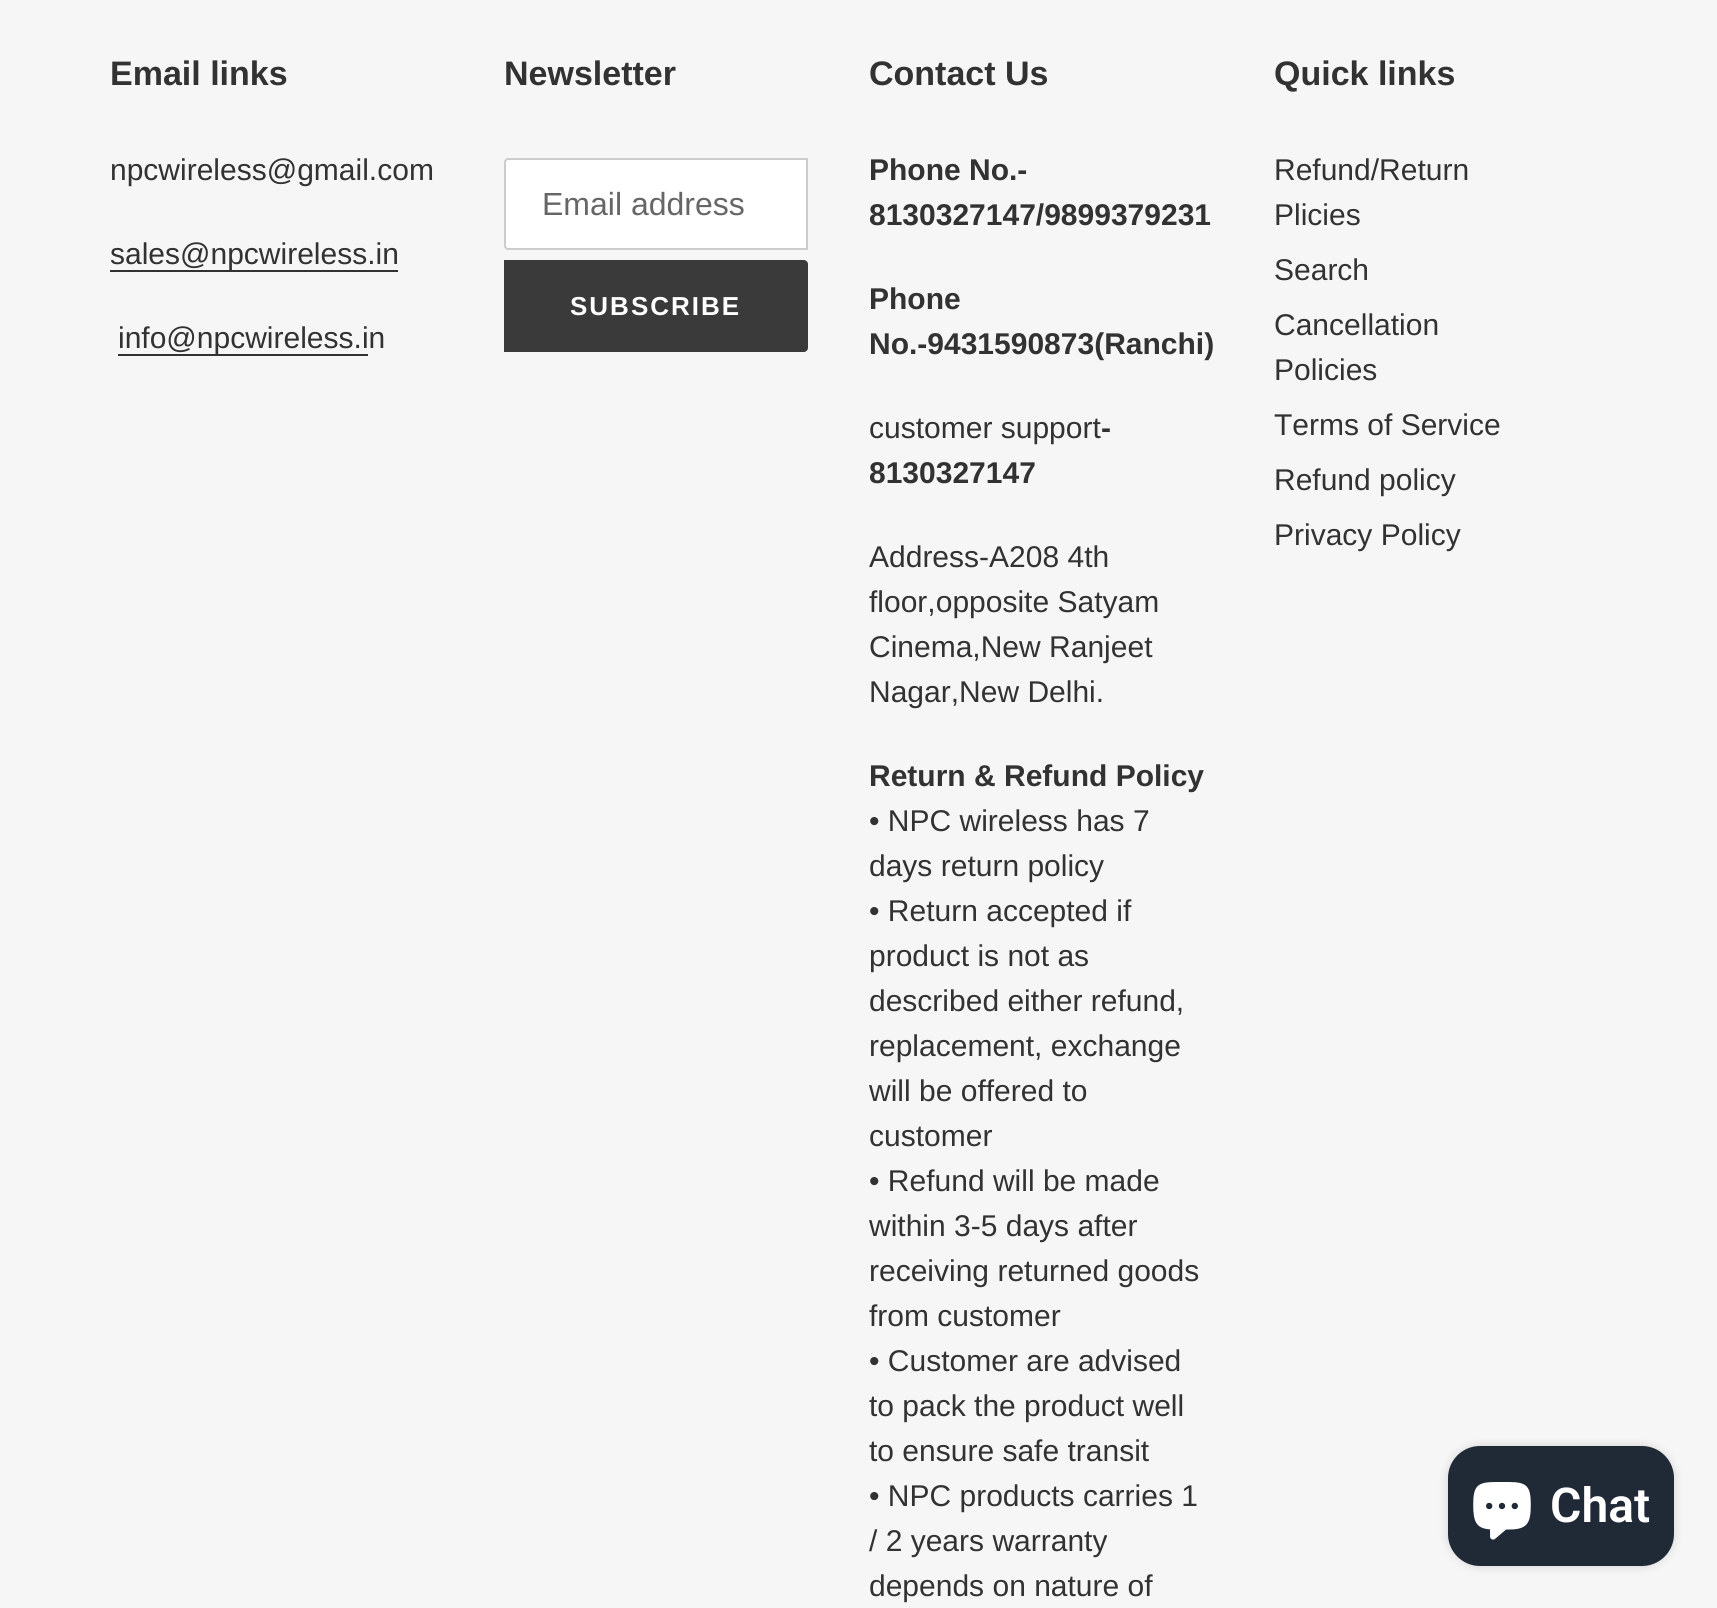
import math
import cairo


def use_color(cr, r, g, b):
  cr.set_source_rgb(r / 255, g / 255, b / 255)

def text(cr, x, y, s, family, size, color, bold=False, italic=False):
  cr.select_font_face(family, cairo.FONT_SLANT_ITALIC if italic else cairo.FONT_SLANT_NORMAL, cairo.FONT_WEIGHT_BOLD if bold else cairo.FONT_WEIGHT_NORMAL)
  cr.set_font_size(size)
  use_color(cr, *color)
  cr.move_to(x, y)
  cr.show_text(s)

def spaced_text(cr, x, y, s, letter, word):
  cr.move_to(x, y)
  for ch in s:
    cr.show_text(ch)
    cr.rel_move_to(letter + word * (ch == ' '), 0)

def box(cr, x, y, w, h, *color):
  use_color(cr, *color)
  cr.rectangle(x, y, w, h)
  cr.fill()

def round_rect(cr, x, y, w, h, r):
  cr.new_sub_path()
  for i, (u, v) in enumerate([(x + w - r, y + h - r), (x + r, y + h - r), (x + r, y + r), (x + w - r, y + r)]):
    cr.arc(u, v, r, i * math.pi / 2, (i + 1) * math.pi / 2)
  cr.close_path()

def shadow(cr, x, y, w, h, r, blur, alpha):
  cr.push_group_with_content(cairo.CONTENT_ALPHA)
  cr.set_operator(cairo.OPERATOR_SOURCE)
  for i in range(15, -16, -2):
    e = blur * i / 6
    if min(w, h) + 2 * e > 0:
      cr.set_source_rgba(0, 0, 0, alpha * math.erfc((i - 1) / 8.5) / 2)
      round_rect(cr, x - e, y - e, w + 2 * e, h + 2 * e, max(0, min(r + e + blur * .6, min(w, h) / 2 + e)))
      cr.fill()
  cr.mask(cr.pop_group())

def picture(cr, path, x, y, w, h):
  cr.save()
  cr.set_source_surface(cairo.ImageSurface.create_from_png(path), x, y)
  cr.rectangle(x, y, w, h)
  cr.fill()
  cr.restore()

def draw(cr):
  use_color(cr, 246, 246, 246)
  cr.paint()
  box(cr, 110, 270, 288, 2, 51, 50, 50)
  box(cr, 118, 354, 250, 2, 51, 50, 50)
  use_color(cr, 255, 255, 255)
  cr.new_path()
  cr.move_to(508, 159)
  cr.line_to(807, 159)
  cr.line_to(807, 249)
  cr.line_to(508, 249)
  cr.curve_to(506.5, 249, 505, 247.5, 505, 246)
  cr.line_to(505, 162)
  cr.curve_to(505, 160.5, 506.5, 159, 508, 159)
  cr.close_path()
  cr.fill_preserve()
  use_color(cr, 204, 204, 204)
  cr.stroke()
  use_color(cr, 58, 58, 58)
  cr.new_path()
  cr.move_to(504, 260)
  cr.line_to(804, 260)
  cr.curve_to(806, 260, 808, 262, 808, 264)
  cr.line_to(808, 348)
  cr.curve_to(808, 350, 806, 352, 804, 352)
  cr.line_to(504, 352)
  cr.close_path()
  cr.fill()
  use_color(cr, 0, 0, 0)
  shadow(cr, 1448, 1446, 226, 120, 32, 5, 0.15)
  use_color(cr, 32, 41, 54)
  round_rect(cr, 1448, 1446, 226, 120, 32)
  cr.fill()
  picture(cr, "img_01.png", 1473, 1482, 58, 58)
  text(cr, 110, 85, "Email links", "Liberation Sans", 34, (51, 50, 50), bold=True)
  text(cr, 110, 180, "npcwireless@gmail.com", "Liberation Sans", 30, (51, 50, 50))
  text(cr, 110, 264, "sales@npcwireless.in", "Liberation Sans", 30, (51, 50, 50))
  text(cr, 118, 348, "info@npcwireless.in", "Liberation Sans", 30, (51, 50, 50))
  text(cr, 504, 85, "Newsletter", "Liberation Sans", 34, (51, 50, 50), bold=True)
  text(cr, 542, 215, "Email address", "Liberation Sans", 32, (102, 102, 102))
  cr.select_font_face("Liberation Sans", cairo.FONT_SLANT_NORMAL, cairo.FONT_WEIGHT_BOLD)
  cr.set_font_size(26)
  use_color(cr, 255, 255, 255)
  spaced_text(cr, 570, 315, "SUBSCRIBE", 2, 0)
  text(cr, 869, 85, "Contact Us", "Liberation Sans", 34, (51, 50, 50), bold=True)
  text(cr, 869, 180, "Phone No.-", "Liberation Sans", 30, (51, 50, 50), bold=True)
  text(cr, 869, 225, "8130327147/9899379231", "Liberation Sans", 30, (51, 50, 50), bold=True)
  text(cr, 869, 309, "Phone", "Liberation Sans", 30, (51, 50, 50), bold=True)
  text(cr, 869, 354, "No.-9431590873(Ranchi)", "Liberation Sans", 30, (51, 50, 50), bold=True)
  text(cr, 869, 438, "customer support", "Liberation Sans", 30, (51, 50, 50))
  text(cr, 1101, 438, "-", "Liberation Sans", 30, (51, 50, 50), bold=True)
  text(cr, 869, 483, "8130327147", "Liberation Sans", 30, (51, 50, 50), bold=True)
  text(cr, 869, 567, "Address-A208 4th", "Liberation Sans", 30, (51, 50, 50))
  text(cr, 869, 612, "floor,opposite Satyam", "Liberation Sans", 30, (51, 50, 50))
  text(cr, 869, 657, "Cinema,New Ranjeet", "Liberation Sans", 30, (51, 50, 50))
  text(cr, 869, 702, "Nagar,New Delhi.", "Liberation Sans", 30, (51, 50, 50))
  text(cr, 869, 786, "Return & Refund Policy", "Liberation Sans", 30, (51, 50, 50), bold=True)
  text(cr, 869, 831, "• NPC wireless has 7", "Liberation Sans", 30, (51, 50, 50))
  text(cr, 869, 876, "days return policy", "Liberation Sans", 30, (51, 50, 50))
  text(cr, 869, 921, "• Return accepted if", "Liberation Sans", 30, (51, 50, 50))
  text(cr, 869, 966, "product is not as", "Liberation Sans", 30, (51, 50, 50))
  text(cr, 869, 1011, "described either refund,", "Liberation Sans", 30, (51, 50, 50))
  text(cr, 869, 1056, "replacement, exchange", "Liberation Sans", 30, (51, 50, 50))
  text(cr, 869, 1101, "will be offered to", "Liberation Sans", 30, (51, 50, 50))
  text(cr, 869, 1146, "customer", "Liberation Sans", 30, (51, 50, 50))
  text(cr, 869, 1191, "• Refund will be made", "Liberation Sans", 30, (51, 50, 50))
  text(cr, 869, 1236, "within 3-5 days after", "Liberation Sans", 30, (51, 50, 50))
  text(cr, 869, 1281, "receiving returned goods", "Liberation Sans", 30, (51, 50, 50))
  text(cr, 869, 1326, "from customer", "Liberation Sans", 30, (51, 50, 50))
  text(cr, 869, 1371, "• Customer are advised", "Liberation Sans", 30, (51, 50, 50))
  text(cr, 869, 1416, "to pack the product well", "Liberation Sans", 30, (51, 50, 50))
  text(cr, 869, 1461, "to ensure safe transit", "Liberation Sans", 30, (51, 50, 50))
  text(cr, 869, 1506, "• NPC products carries 1", "Liberation Sans", 30, (51, 50, 50))
  text(cr, 869, 1551, "/ 2 years warranty", "Liberation Sans", 30, (51, 50, 50))
  text(cr, 869, 1596, "depends on nature of", "Liberation Sans", 30, (51, 50, 50))
  text(cr, 1274, 85, "Quick links", "Liberation Sans", 34, (51, 50, 50), bold=True)
  text(cr, 1274, 180, "Refund/Return", "Liberation Sans", 30, (51, 50, 50))
  text(cr, 1274, 225, "Plicies", "Liberation Sans", 30, (51, 50, 50))
  text(cr, 1274, 280, "Search", "Liberation Sans", 30, (51, 50, 50))
  text(cr, 1274, 335, "Cancellation", "Liberation Sans", 30, (51, 50, 50))
  text(cr, 1274, 380, "Policies", "Liberation Sans", 30, (51, 50, 50))
  text(cr, 1274, 435, "Terms of Service", "Liberation Sans", 30, (51, 50, 50))
  text(cr, 1274, 490, "Refund policy", "Liberation Sans", 30, (51, 50, 50))
  text(cr, 1274, 545, "Privacy Policy", "Liberation Sans", 30, (51, 50, 50))
  text(cr, 1550, 1522, "Chat", "Roboto SemiBold", 48, (255, 255, 255))


surface = cairo.ImageSurface(cairo.FORMAT_RGB24, 1717, 1608)
cr = cairo.Context(surface)
options = cairo.FontOptions()
options.set_hint_metrics(cairo.HINT_METRICS_OFF)
options.set_hint_style(cairo.HINT_STYLE_NONE)
cr.set_font_options(options)
cr.set_miter_limit(4)
draw(cr)
surface.write_to_png("out.png")
